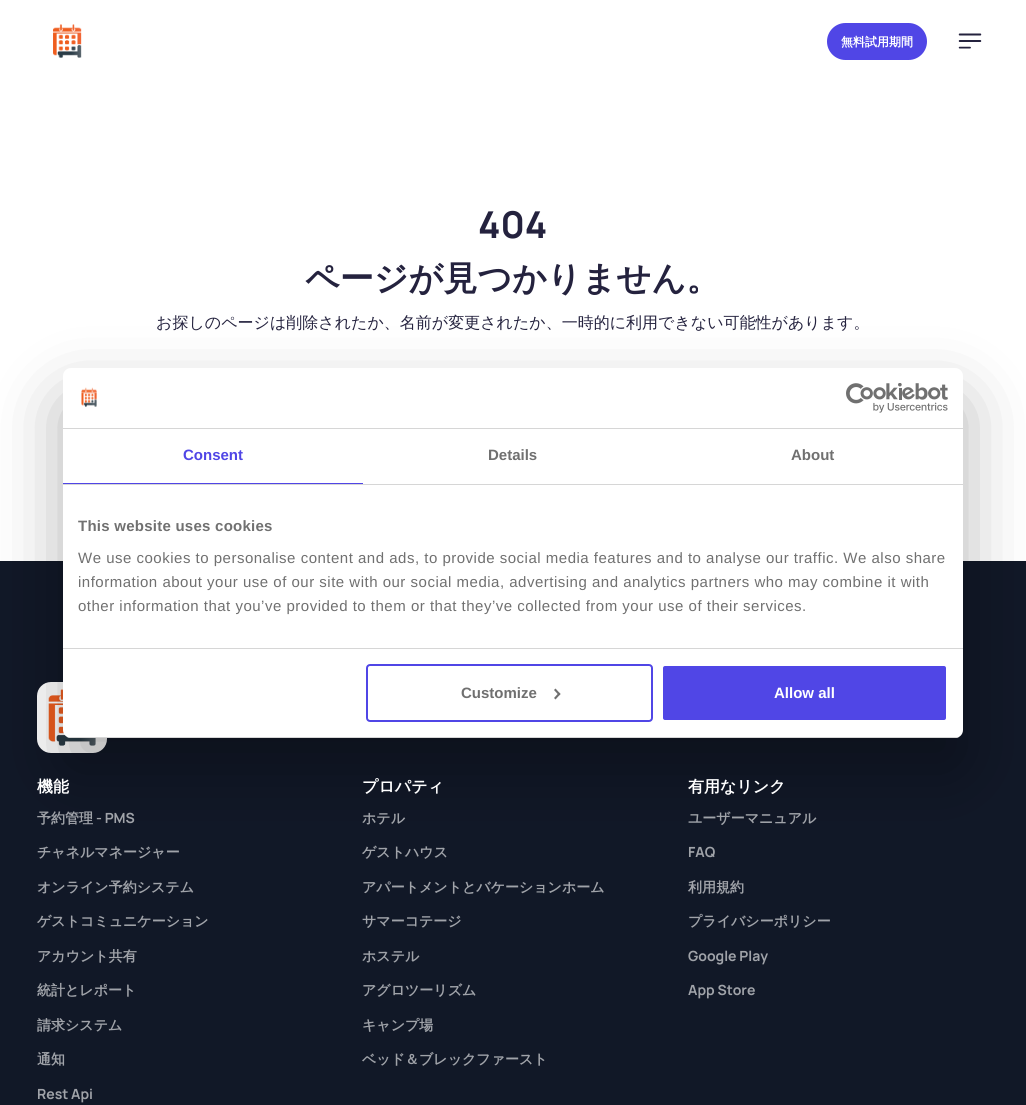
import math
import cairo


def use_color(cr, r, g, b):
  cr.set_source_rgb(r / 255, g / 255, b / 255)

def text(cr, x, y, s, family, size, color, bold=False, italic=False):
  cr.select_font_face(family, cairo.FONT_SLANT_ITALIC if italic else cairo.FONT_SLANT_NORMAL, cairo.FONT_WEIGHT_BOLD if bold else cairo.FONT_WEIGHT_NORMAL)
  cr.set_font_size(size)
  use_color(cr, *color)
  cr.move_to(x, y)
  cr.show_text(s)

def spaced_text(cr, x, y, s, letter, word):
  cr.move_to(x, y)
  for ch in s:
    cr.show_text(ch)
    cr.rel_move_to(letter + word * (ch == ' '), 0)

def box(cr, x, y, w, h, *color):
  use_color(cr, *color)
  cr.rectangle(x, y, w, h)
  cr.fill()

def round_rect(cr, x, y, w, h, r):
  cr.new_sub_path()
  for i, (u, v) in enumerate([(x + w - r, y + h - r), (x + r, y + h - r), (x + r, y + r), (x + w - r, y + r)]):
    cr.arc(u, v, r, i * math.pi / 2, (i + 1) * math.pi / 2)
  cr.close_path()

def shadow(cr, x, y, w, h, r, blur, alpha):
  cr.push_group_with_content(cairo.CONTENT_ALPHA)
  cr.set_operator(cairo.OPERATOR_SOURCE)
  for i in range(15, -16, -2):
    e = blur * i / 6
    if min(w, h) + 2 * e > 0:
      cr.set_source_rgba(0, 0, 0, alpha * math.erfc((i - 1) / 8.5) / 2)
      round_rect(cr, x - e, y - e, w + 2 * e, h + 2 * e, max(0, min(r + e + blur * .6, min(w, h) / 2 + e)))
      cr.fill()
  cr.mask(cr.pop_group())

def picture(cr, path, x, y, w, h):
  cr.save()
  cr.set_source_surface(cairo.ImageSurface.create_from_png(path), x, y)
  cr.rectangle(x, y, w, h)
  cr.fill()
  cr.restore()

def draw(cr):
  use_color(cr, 255, 255, 255)
  cr.paint()
  picture(cr, "img_01.png", 53, 24, 29, 34)
  use_color(cr, 80, 70, 230)
  round_rect(cr, 827, 23, 100, 37, 18.5)
  cr.fill()
  picture(cr, "img_02.png", 958, 33, 24, 16)
  box(cr, 0, 562, 1026, 543, 17, 24, 39)
  box(cr, 0, 561, 1026, 1, 16, 23, 37)
  use_color(cr, 255, 255, 255)
  round_rect(cr, 37, 682, 70, 71, 14)
  cr.fill()
  picture(cr, "img_05.png", 48, 689, 48, 57)
  use_color(cr, 0, 0, 0)
  shadow(cr, 63, 400, 900, 370, 8, 34, 0.3)
  use_color(cr, 255, 255, 255)
  round_rect(cr, 63, 368, 900, 370, 8)
  cr.fill()
  box(cr, 63, 428, 900, 1, 214, 214, 214)
  picture(cr, "img_03.png", 81, 387, 16, 20)
  picture(cr, "img_04.png", 846, 383, 102, 30)
  box(cr, 63, 484, 900, 1, 214, 214, 214)
  box(cr, 63, 483, 300, 1, 80, 70, 230)
  box(cr, 63, 648, 900, 1, 214, 214, 214)
  cr.save()
  round_rect(cr, 63, 368, 900, 370, 8)
  cr.clip()
  box(cr, 63, 737, 900, 1, 214, 214, 214)
  cr.restore()
  round_rect(cr, 367, 665, 285, 56, 3)
  use_color(cr, 80, 70, 230)
  cr.stroke()
  use_color(cr, 112, 112, 112)
  cr.new_path()
  cr.move_to(555.5, 688.5)
  cr.line_to(560.5, 694)
  cr.line_to(559, 695.5)
  cr.line_to(554, 690)
  cr.close_path()
  cr.fill()
  cr.new_path()
  cr.move_to(559, 692.5)
  cr.line_to(560.5, 694)
  cr.line_to(555.5, 699.5)
  cr.line_to(554, 698)
  cr.close_path()
  cr.fill()
  use_color(cr, 80, 70, 230)
  round_rect(cr, 662, 665, 285, 56, 3)
  cr.fill_preserve()
  use_color(cr, 255, 255, 255)
  cr.stroke()
  text(cr, 841, 46, "無料試用期間", "WenQuanYi Zen Hei", 12, (255, 255, 255), bold=True)
  text(cr, 478, 238, "404", "Manrope", 37, (36, 34, 62), bold=True)
  text(cr, 305, 290, "ページが見つかりません。", "WenQuanYi Zen Hei", 34, (36, 34, 62), bold=True)
  text(cr, 156, 328, "お探しのページは削除されたか、名前が変更されたか、一時的に利用できない可能性があります。", "WenQuanYi Zen Hei Medium", 16, (36, 34, 62))
  text(cr, 183, 460, "Consent", "Liberation Sans", 15, (80, 70, 230), bold=True)
  text(cr, 488, 460, "Details", "Liberation Sans", 15, (112, 112, 112), bold=True)
  text(cr, 791, 460, "About", "Liberation Sans", 15, (112, 112, 112), bold=True)
  spaced_text(cr, 78, 531, "This website uses cookies", 0.25, 0)
  cr.select_font_face("Liberation Sans")
  spaced_text(cr, 78, 563, "We use cookies to personalise content and ads, to provide social media features and to analyse our traffic. We also share", 0.5, 0)
  spaced_text(cr, 78, 587, "information about your use of our site with our social media, advertising and analytics partners who may combine it with", 0.5, 0)
  spaced_text(cr, 78, 611, "other information that you’ve provided to them or that they’ve collected from your use of their services.", 0.5, 0)
  text(cr, 461, 698, "Customize", "Liberation Sans", 15, (112, 112, 112), bold=True)
  text(cr, 774, 698, "Allow all", "Liberation Sans", 15, (255, 255, 255), bold=True)
  text(cr, 37, 792, "機能", "WenQuanYi Zen Hei", 16, (255, 255, 255), bold=True)
  text(cr, 37, 823, "予約管理", "WenQuanYi Zen Hei", 14, (160, 163, 169), bold=True)
  text(cr, 96, 823, "- PMS", "Manrope", 14, (160, 163, 169), bold=True)
  text(cr, 37, 857, "チャネルマネージャー", "WenQuanYi Zen Hei", 14, (160, 163, 169), bold=True)
  text(cr, 37, 892, "オンライン予約システム", "WenQuanYi Zen Hei", 14, (160, 163, 169), bold=True)
  text(cr, 37, 926, "ゲストコミュニケーション", "WenQuanYi Zen Hei", 14, (160, 163, 169), bold=True)
  text(cr, 37, 961, "アカウント共有", "WenQuanYi Zen Hei", 14, (160, 163, 169), bold=True)
  text(cr, 37, 995, "統計とレポート", "WenQuanYi Zen Hei", 14, (160, 163, 169), bold=True)
  text(cr, 37, 1030, "請求システム", "WenQuanYi Zen Hei", 14, (160, 163, 169), bold=True)
  text(cr, 37, 1064, "通知", "WenQuanYi Zen Hei", 14, (160, 163, 169), bold=True)
  text(cr, 37, 1099, "Rest Api", "Manrope", 14, (160, 163, 169), bold=True)
  text(cr, 362, 792, "プロパティ", "WenQuanYi Zen Hei", 16, (255, 255, 255), bold=True)
  text(cr, 362, 823, "ホテル", "WenQuanYi Zen Hei", 14, (160, 163, 169), bold=True)
  text(cr, 362, 857, "ゲストハウス", "WenQuanYi Zen Hei", 14, (160, 163, 169), bold=True)
  text(cr, 362, 892, "アパートメントとバケーションホーム", "WenQuanYi Zen Hei", 14, (160, 163, 169), bold=True)
  text(cr, 362, 926, "サマーコテージ", "WenQuanYi Zen Hei", 14, (160, 163, 169), bold=True)
  text(cr, 362, 961, "ホステル", "WenQuanYi Zen Hei", 14, (160, 163, 169), bold=True)
  text(cr, 362, 995, "アグロツーリズム", "WenQuanYi Zen Hei", 14, (160, 163, 169), bold=True)
  text(cr, 362, 1030, "キャンプ場", "WenQuanYi Zen Hei", 14, (160, 163, 169), bold=True)
  text(cr, 362, 1064, "ベッド＆ブレックファースト", "WenQuanYi Zen Hei", 14, (160, 163, 169), bold=True)
  text(cr, 688, 792, "有用なリンク", "WenQuanYi Zen Hei", 16, (255, 255, 255), bold=True)
  text(cr, 688, 823, "ユーザーマニュアル", "WenQuanYi Zen Hei", 14, (160, 163, 169), bold=True)
  text(cr, 688, 857, "FAQ", "Manrope", 14, (160, 163, 169), bold=True)
  text(cr, 688, 892, "利用規約", "WenQuanYi Zen Hei", 14, (160, 163, 169), bold=True)
  text(cr, 688, 926, "プライバシーポリシー", "WenQuanYi Zen Hei", 14, (160, 163, 169), bold=True)
  text(cr, 688, 961, "Google Play", "Manrope", 14, (160, 163, 169), bold=True)
  text(cr, 688, 995, "App Store", "Manrope", 14, (160, 163, 169), bold=True)


surface = cairo.ImageSurface(cairo.FORMAT_RGB24, 1026, 1105)
cr = cairo.Context(surface)
options = cairo.FontOptions()
options.set_hint_metrics(cairo.HINT_METRICS_OFF)
options.set_hint_style(cairo.HINT_STYLE_NONE)
cr.set_font_options(options)
cr.set_miter_limit(4)
draw(cr)
surface.write_to_png("out.png")
